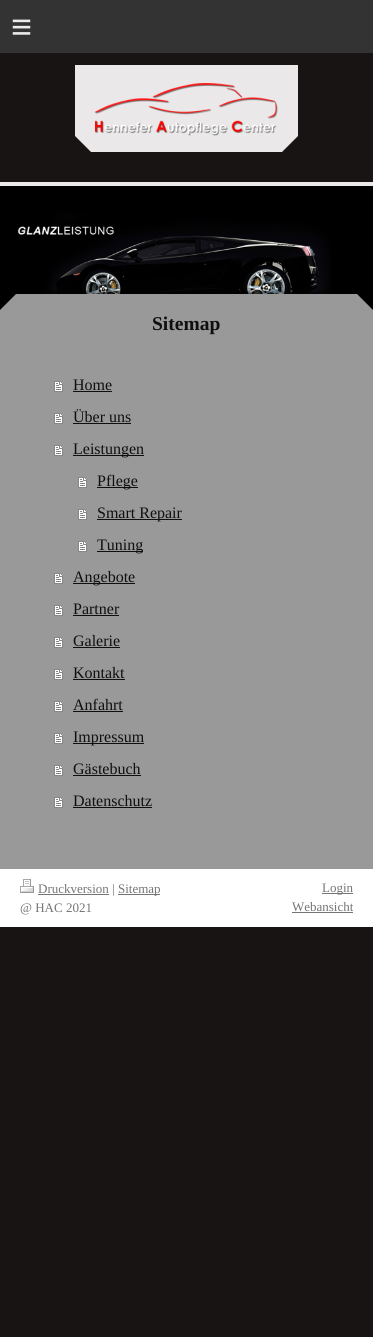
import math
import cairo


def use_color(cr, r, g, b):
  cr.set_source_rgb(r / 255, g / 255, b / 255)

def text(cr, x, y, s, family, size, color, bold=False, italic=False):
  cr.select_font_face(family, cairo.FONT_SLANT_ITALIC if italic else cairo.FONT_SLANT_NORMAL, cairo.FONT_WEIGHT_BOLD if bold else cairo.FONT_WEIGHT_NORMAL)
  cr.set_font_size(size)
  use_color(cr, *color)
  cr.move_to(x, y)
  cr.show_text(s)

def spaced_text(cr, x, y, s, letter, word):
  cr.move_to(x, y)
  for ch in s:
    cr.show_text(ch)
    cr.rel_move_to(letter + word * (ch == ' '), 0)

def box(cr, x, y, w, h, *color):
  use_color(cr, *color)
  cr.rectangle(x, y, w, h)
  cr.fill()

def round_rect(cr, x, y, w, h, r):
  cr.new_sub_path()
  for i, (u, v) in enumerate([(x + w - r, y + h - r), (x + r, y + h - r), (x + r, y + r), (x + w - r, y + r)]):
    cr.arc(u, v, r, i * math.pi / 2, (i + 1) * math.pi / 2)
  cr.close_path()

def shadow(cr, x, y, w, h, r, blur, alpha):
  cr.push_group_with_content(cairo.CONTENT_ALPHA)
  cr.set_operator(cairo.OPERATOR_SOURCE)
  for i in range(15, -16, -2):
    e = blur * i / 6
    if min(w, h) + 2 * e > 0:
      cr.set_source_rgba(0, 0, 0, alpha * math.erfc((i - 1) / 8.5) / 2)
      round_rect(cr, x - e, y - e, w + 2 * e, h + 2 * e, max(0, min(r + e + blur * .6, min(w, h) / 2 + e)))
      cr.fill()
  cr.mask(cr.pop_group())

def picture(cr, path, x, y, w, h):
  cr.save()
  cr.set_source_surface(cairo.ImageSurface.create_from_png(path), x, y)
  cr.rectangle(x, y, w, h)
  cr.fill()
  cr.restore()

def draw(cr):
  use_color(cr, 24, 20, 20)
  cr.paint()
  box(cr, 0, 0, 373, 53, 51, 51, 51)
  box(cr, 75, 65, 223, 71, 234, 232, 232)
  picture(cr, "img_01.png", 95, 83, 183, 53)
  cr.new_path()
  cr.move_to(75, 136)
  cr.line_to(298, 136)
  cr.line_to(282, 152)
  cr.line_to(91, 152)
  cr.close_path()
  cr.fill()
  box(cr, 0, 182, 373, 4, 234, 232, 232)
  picture(cr, "img_02.png", 0, 186, 373, 124)
  box(cr, 0, 310, 373, 559, 153, 153, 153)
  use_color(cr, 0, 0, 0)
  shadow(cr, 32, 291, 309, 16, 8, 1.5, 0.5)
  use_color(cr, 153, 153, 153)
  cr.new_path()
  cr.move_to(373, 310)
  cr.line_to(0, 310)
  cr.line_to(16, 294)
  cr.line_to(357, 294)
  cr.close_path()
  cr.fill()
  picture(cr, "img_03.png", 54, 381, 9, 11)
  box(cr, 73, 391, 39, 1, 15, 15, 15)
  picture(cr, "img_03.png", 54, 413, 9, 11)
  box(cr, 73, 423, 58, 1, 15, 15, 15)
  picture(cr, "img_03.png", 54, 445, 9, 11)
  box(cr, 73, 455, 71, 1, 15, 15, 15)
  picture(cr, "img_03.png", 78, 477, 9, 11)
  box(cr, 97, 487, 41, 1, 15, 15, 15)
  picture(cr, "img_03.png", 78, 509, 9, 11)
  box(cr, 97, 519, 85, 1, 15, 15, 15)
  picture(cr, "img_03.png", 78, 541, 9, 11)
  box(cr, 97, 551, 46, 1, 15, 15, 15)
  picture(cr, "img_03.png", 54, 573, 9, 11)
  box(cr, 73, 583, 62, 1, 15, 15, 15)
  picture(cr, "img_03.png", 54, 605, 9, 11)
  box(cr, 73, 615, 46, 1, 15, 15, 15)
  picture(cr, "img_03.png", 54, 637, 9, 11)
  box(cr, 73, 647, 47, 1, 15, 15, 15)
  picture(cr, "img_03.png", 54, 669, 9, 11)
  box(cr, 73, 679, 52, 1, 15, 15, 15)
  picture(cr, "img_03.png", 54, 701, 9, 11)
  box(cr, 73, 711, 50, 1, 15, 15, 15)
  picture(cr, "img_03.png", 54, 733, 9, 11)
  box(cr, 73, 743, 71, 1, 15, 15, 15)
  picture(cr, "img_03.png", 54, 765, 9, 11)
  box(cr, 73, 775, 68, 1, 15, 15, 15)
  picture(cr, "img_03.png", 54, 797, 9, 11)
  box(cr, 73, 807, 79, 1, 15, 15, 15)
  box(cr, 0, 869, 373, 58, 255, 255, 255)
  picture(cr, "img_04.png", 20, 879, 14, 14)
  box(cr, 38, 894, 71, 1, 117, 117, 117)
  box(cr, 118, 894, 42, 1, 117, 117, 117)
  box(cr, 322, 893, 31, 1, 117, 117, 117)
  box(cr, 292, 912, 61, 1, 117, 117, 117)
  cr.select_font_face("Liberation Sans")
  cr.set_font_size(36)
  use_color(cr, 235, 235, 235)
  spaced_text(cr, 11, 39, "≡", 10, 0)
  text(cr, 152, 330, "Sitemap", "Liberation Serif", 19.5, (15, 15, 15), bold=True)
  text(cr, 73, 390, "Home", "Liberation Serif", 16, (15, 15, 15))
  text(cr, 73, 422, "Über uns", "Liberation Serif", 16, (15, 15, 15))
  text(cr, 73, 454, "Leistungen", "Liberation Serif", 16, (15, 15, 15))
  text(cr, 97, 486, "Pflege", "Liberation Serif", 16, (15, 15, 15))
  text(cr, 97, 518, "Smart Repair", "Liberation Serif", 16, (15, 15, 15))
  text(cr, 97, 550, "Tuning", "Liberation Serif", 16, (15, 15, 15))
  text(cr, 73, 582, "Angebote", "Liberation Serif", 16, (15, 15, 15))
  text(cr, 73, 614, "Partner", "Liberation Serif", 16, (15, 15, 15))
  text(cr, 73, 646, "Galerie", "Liberation Serif", 16, (15, 15, 15))
  text(cr, 73, 678, "Kontakt", "Liberation Serif", 16, (15, 15, 15))
  text(cr, 73, 710, "Anfahrt", "Liberation Serif", 16, (15, 15, 15))
  text(cr, 73, 742, "Impressum", "Liberation Serif", 16, (15, 15, 15))
  text(cr, 73, 774, "Gästebuch", "Liberation Serif", 16, (15, 15, 15))
  text(cr, 73, 806, "Datenschutz", "Liberation Serif", 16, (15, 15, 15))
  text(cr, 38, 893, "Druckversion |", "Liberation Serif", 13, (117, 117, 117))
  text(cr, 118, 893, "Sitemap", "Liberation Serif", 13, (117, 117, 117))
  text(cr, 20, 912, "@ HAC 2021", "Liberation Serif", 13, (117, 117, 117))
  text(cr, 322, 892, "Login", "Liberation Serif", 13, (117, 117, 117))
  text(cr, 292, 911, "Webansicht", "Liberation Serif", 13, (117, 117, 117))


surface = cairo.ImageSurface(cairo.FORMAT_RGB24, 373, 1337)
cr = cairo.Context(surface)
options = cairo.FontOptions()
options.set_hint_metrics(cairo.HINT_METRICS_OFF)
options.set_hint_style(cairo.HINT_STYLE_NONE)
cr.set_font_options(options)
cr.set_miter_limit(4)
draw(cr)
surface.write_to_png("out.png")
